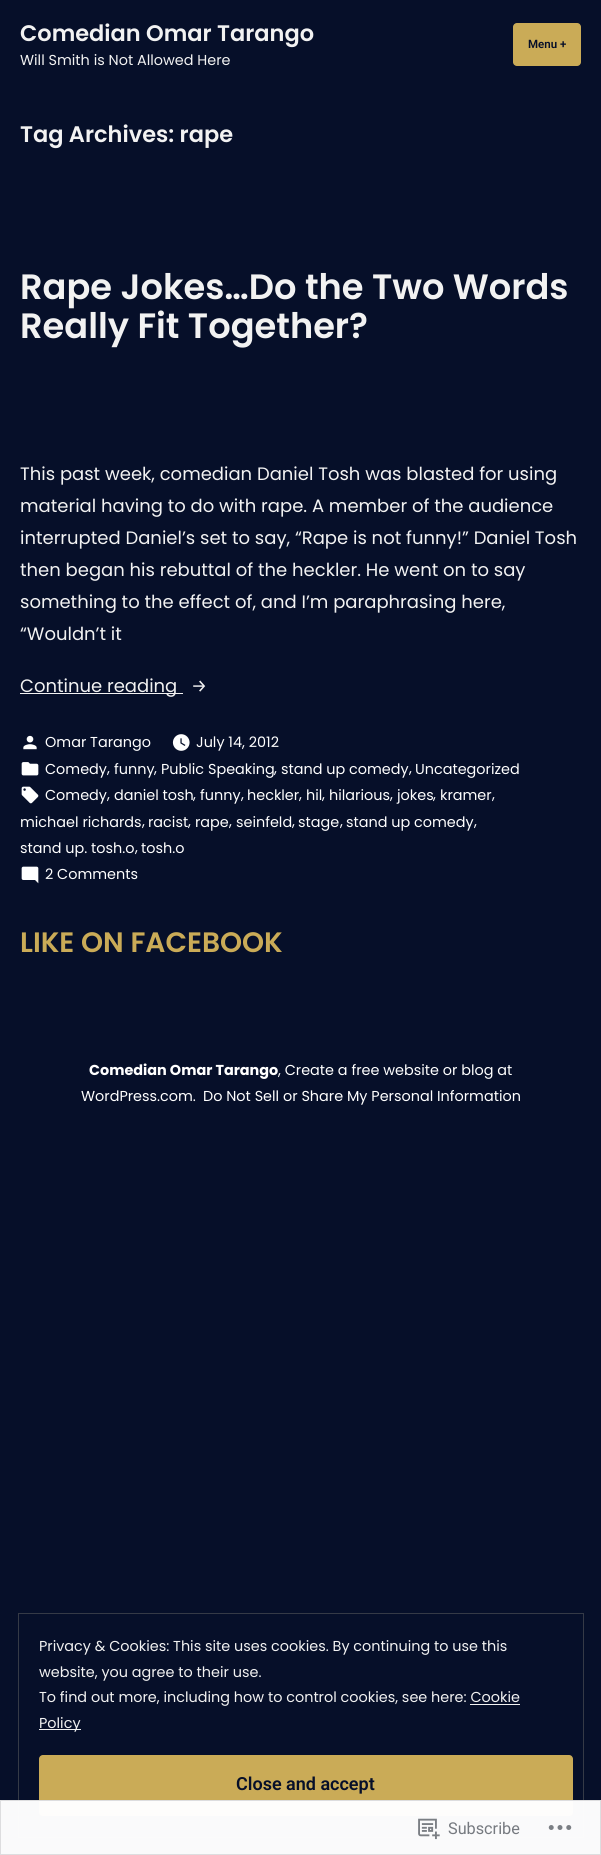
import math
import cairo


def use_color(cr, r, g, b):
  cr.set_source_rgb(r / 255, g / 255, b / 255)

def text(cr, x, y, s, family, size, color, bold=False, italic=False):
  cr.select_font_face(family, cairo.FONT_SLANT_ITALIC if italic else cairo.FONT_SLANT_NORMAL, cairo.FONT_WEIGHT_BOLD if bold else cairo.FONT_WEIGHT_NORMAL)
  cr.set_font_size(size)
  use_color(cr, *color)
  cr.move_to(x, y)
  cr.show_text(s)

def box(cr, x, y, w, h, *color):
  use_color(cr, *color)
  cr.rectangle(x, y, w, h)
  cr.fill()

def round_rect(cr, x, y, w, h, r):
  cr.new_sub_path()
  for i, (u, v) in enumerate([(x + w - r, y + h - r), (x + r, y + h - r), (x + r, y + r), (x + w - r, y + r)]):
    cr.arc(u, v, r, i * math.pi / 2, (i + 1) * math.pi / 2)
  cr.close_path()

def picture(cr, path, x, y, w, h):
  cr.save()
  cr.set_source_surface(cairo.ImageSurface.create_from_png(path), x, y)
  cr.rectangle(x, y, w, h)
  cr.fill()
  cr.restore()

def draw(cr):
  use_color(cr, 6, 15, 41)
  cr.paint()
  use_color(cr, 202, 171, 87)
  round_rect(cr, 513, 23, 68, 43, 4)
  cr.fill()
  box(cr, 20, 693, 163, 1, 242, 242, 242)
  picture(cr, "img_01.png", 23, 735, 14, 15)
  picture(cr, "img_02.png", 172, 734, 18, 17)
  picture(cr, "img_03.png", 21, 762, 18, 14)
  picture(cr, "img_04.png", 21, 786, 18, 18)
  picture(cr, "img_05.png", 21, 866, 18, 18)
  cr.rectangle(18.5, 1613.5, 565, 224)
  use_color(cr, 53, 58, 70)
  cr.set_line_width(1)
  cr.stroke()
  box(cr, 470, 1704, 50, 1, 242, 242, 242)
  box(cr, 39, 1729, 42, 1, 242, 242, 242)
  use_color(cr, 202, 171, 87)
  round_rect(cr, 39, 1755, 534, 61, 4)
  cr.fill()
  cr.set_source_rgba(1, 1, 1, 0.98)
  cr.rectangle(0, 1800, 601, 55)
  cr.fill()
  cr.rectangle(0.5, 1800.5, 600, 54)
  cr.set_source_rgba(0.863, 0.863, 0.871, 0.98)
  cr.stroke()
  picture(cr, "img_06.png", 418, 1818, 22, 22)
  picture(cr, "img_07.png", 548, 1825, 24, 5)
  text(cr, 20, 41, "Comedian Omar Tarango", "Poppins SemiBold", 22.5, (242, 242, 242))
  text(cr, 20, 65, "Will Smith is Not Allowed Here", "Poppins", 14.4, (242, 242, 242))
  text(cr, 528, 48, "Menu +", "Roboto SemiBold", 11.5, (6, 15, 41))
  text(cr, 20, 142, "Tag Archives: rape", "Poppins SemiBold", 22.5, (242, 242, 242))
  text(cr, 20, 299, "Rape Jokes…Do the Two Words", "Poppins SemiBold", 35.2, (242, 242, 242))
  text(cr, 20, 338, "Really Fit Together?", "Poppins SemiBold", 35.2, (242, 242, 242))
  text(cr, 20, 480, "This past week, comedian Daniel Tosh was blasted for using", "Poppins", 18, (242, 242, 242))
  text(cr, 20, 512, "material having to do with rape. A member of the audience", "Poppins", 18, (242, 242, 242))
  text(cr, 20, 544, "interrupted Daniel’s set to say, “Rape is not funny!” Daniel Tosh", "Poppins", 18, (242, 242, 242))
  text(cr, 20, 576, "then began his rebuttal of the heckler. He went on to say", "Poppins", 18, (242, 242, 242))
  text(cr, 20, 608, "something to the effect of, and I’m paraphrasing here,", "Poppins", 18, (242, 242, 242))
  text(cr, 20, 640, "“Wouldn’t it", "Poppins", 18, (242, 242, 242))
  text(cr, 20, 692, "Continue reading", "Poppins", 18, (242, 242, 242))
  text(cr, 191, 692, "→", "Fira Sans", 18, (242, 242, 242))
  text(cr, 45, 747, "Omar Tarango", "Poppins", 14.4, (255, 255, 255))
  text(cr, 196, 747, "July 14, 2012", "Poppins", 14.4, (255, 255, 255))
  text(cr, 45, 774, "Comedy", "Poppins", 14.4, (255, 255, 255))
  text(cr, 107, 773, ",", "Poppins", 14.4, (255, 255, 255))
  text(cr, 114, 774, "funny", "Poppins", 14.4, (255, 255, 255))
  text(cr, 154, 773, ",", "Poppins", 14.4, (255, 255, 255))
  text(cr, 161, 774, "Public Speaking", "Poppins", 14.4, (255, 255, 255))
  text(cr, 274, 773, ",", "Poppins", 14.4, (255, 255, 255))
  text(cr, 281, 774, "stand up comedy", "Poppins", 14.4, (255, 255, 255))
  text(cr, 409, 773, ",", "Poppins", 14.4, (255, 255, 255))
  text(cr, 415, 774, "Uncategorized", "Poppins", 14.4, (255, 255, 255))
  text(cr, 45, 800, "Comedy", "Poppins", 14.4, (255, 255, 255))
  text(cr, 107, 799, ",", "Poppins", 14.4, (255, 255, 255))
  text(cr, 114, 800, "daniel tosh", "Poppins", 14.4, (255, 255, 255))
  text(cr, 193, 799, ",", "Poppins", 14.4, (255, 255, 255))
  text(cr, 200, 800, "funny", "Poppins", 14.4, (255, 255, 255))
  text(cr, 241, 799, ",", "Poppins", 14.4, (255, 255, 255))
  text(cr, 247, 800, "heckler", "Poppins", 14.4, (255, 255, 255))
  text(cr, 299, 799, ",", "Poppins", 14.4, (255, 255, 255))
  text(cr, 306, 800, "hil", "Poppins", 14.4, (255, 255, 255))
  text(cr, 322, 799, ",", "Poppins", 14.4, (255, 255, 255))
  text(cr, 329, 800, "hilarious", "Poppins", 14.4, (255, 255, 255))
  text(cr, 390, 799, ",", "Poppins", 14.4, (255, 255, 255))
  text(cr, 397, 800, "jokes", "Poppins", 14.4, (255, 255, 255))
  text(cr, 433, 799, ",", "Poppins", 14.4, (255, 255, 255))
  text(cr, 440, 800, "kramer", "Poppins", 14.4, (255, 255, 255))
  text(cr, 492, 799, ",", "Poppins", 14.4, (255, 255, 255))
  text(cr, 20, 827, "michael richards", "Poppins", 14.4, (255, 255, 255))
  text(cr, 142, 826, ",", "Poppins", 14.4, (255, 255, 255))
  text(cr, 148, 827, "racist", "Poppins", 14.4, (255, 255, 255))
  text(cr, 188, 826, ",", "Poppins", 14.4, (255, 255, 255))
  text(cr, 195, 827, "rape", "Poppins", 14.4, (255, 255, 255))
  text(cr, 229, 826, ",", "Poppins", 14.4, (255, 255, 255))
  text(cr, 236, 827, "seinfeld", "Poppins", 14.4, (255, 255, 255))
  text(cr, 292, 826, ",", "Poppins", 14.4, (255, 255, 255))
  text(cr, 298, 827, "stage", "Poppins", 14.4, (255, 255, 255))
  text(cr, 340, 826, ",", "Poppins", 14.4, (255, 255, 255))
  text(cr, 346, 827, "stand up comedy", "Poppins", 14.4, (255, 255, 255))
  text(cr, 474, 826, ",", "Poppins", 14.4, (255, 255, 255))
  text(cr, 20, 853, "stand up. tosh.o", "Poppins", 14.4, (255, 255, 255))
  text(cr, 135, 852, ",", "Poppins", 14.4, (255, 255, 255))
  text(cr, 141, 853, "tosh.o", "Poppins", 14.4, (255, 255, 255))
  text(cr, 45, 879, "2 Comments", "Poppins", 14.4, (255, 255, 255))
  text(cr, 20, 952, "LIKE ON FACEBOOK", "Poppins SemiBold", 28.1, (202, 171, 87))
  text(cr, 89, 1075, "Comedian Omar Tarango", "Poppins", 14.4, (255, 255, 255), bold=True)
  text(cr, 278, 1075, ", Create a free website or blog at", "Poppins", 14.4, (255, 255, 255))
  text(cr, 81, 1101, "WordPress.com.", "Poppins", 14.4, (255, 255, 255))
  text(cr, 203, 1101, "Do Not Sell or Share My Personal Information", "Poppins", 14.4, (255, 255, 255))
  text(cr, 39, 1651, "Privacy & Cookies: This site uses cookies. By continuing to use this", "Poppins", 14.4, (242, 242, 242))
  text(cr, 39, 1677, "website, you agree to their use.", "Poppins", 14.4, (242, 242, 242))
  text(cr, 39, 1702, "To find out more, including how to control cookies, see here: Cookie", "Poppins", 14.4, (242, 242, 242))
  text(cr, 39, 1728, "Policy", "Poppins", 14.4, (242, 242, 242))
  text(cr, 236, 1790, "Close and accept", "Roboto SemiBold", 18, (6, 15, 41))
  text(cr, 448, 1834, "Subscribe", "Roboto", 16.25, (118, 122, 128))


surface = cairo.ImageSurface(cairo.FORMAT_RGB24, 601, 1855)
cr = cairo.Context(surface)
options = cairo.FontOptions()
options.set_hint_metrics(cairo.HINT_METRICS_OFF)
options.set_hint_style(cairo.HINT_STYLE_NONE)
cr.set_font_options(options)
cr.set_miter_limit(4)
draw(cr)
surface.write_to_png("out.png")
